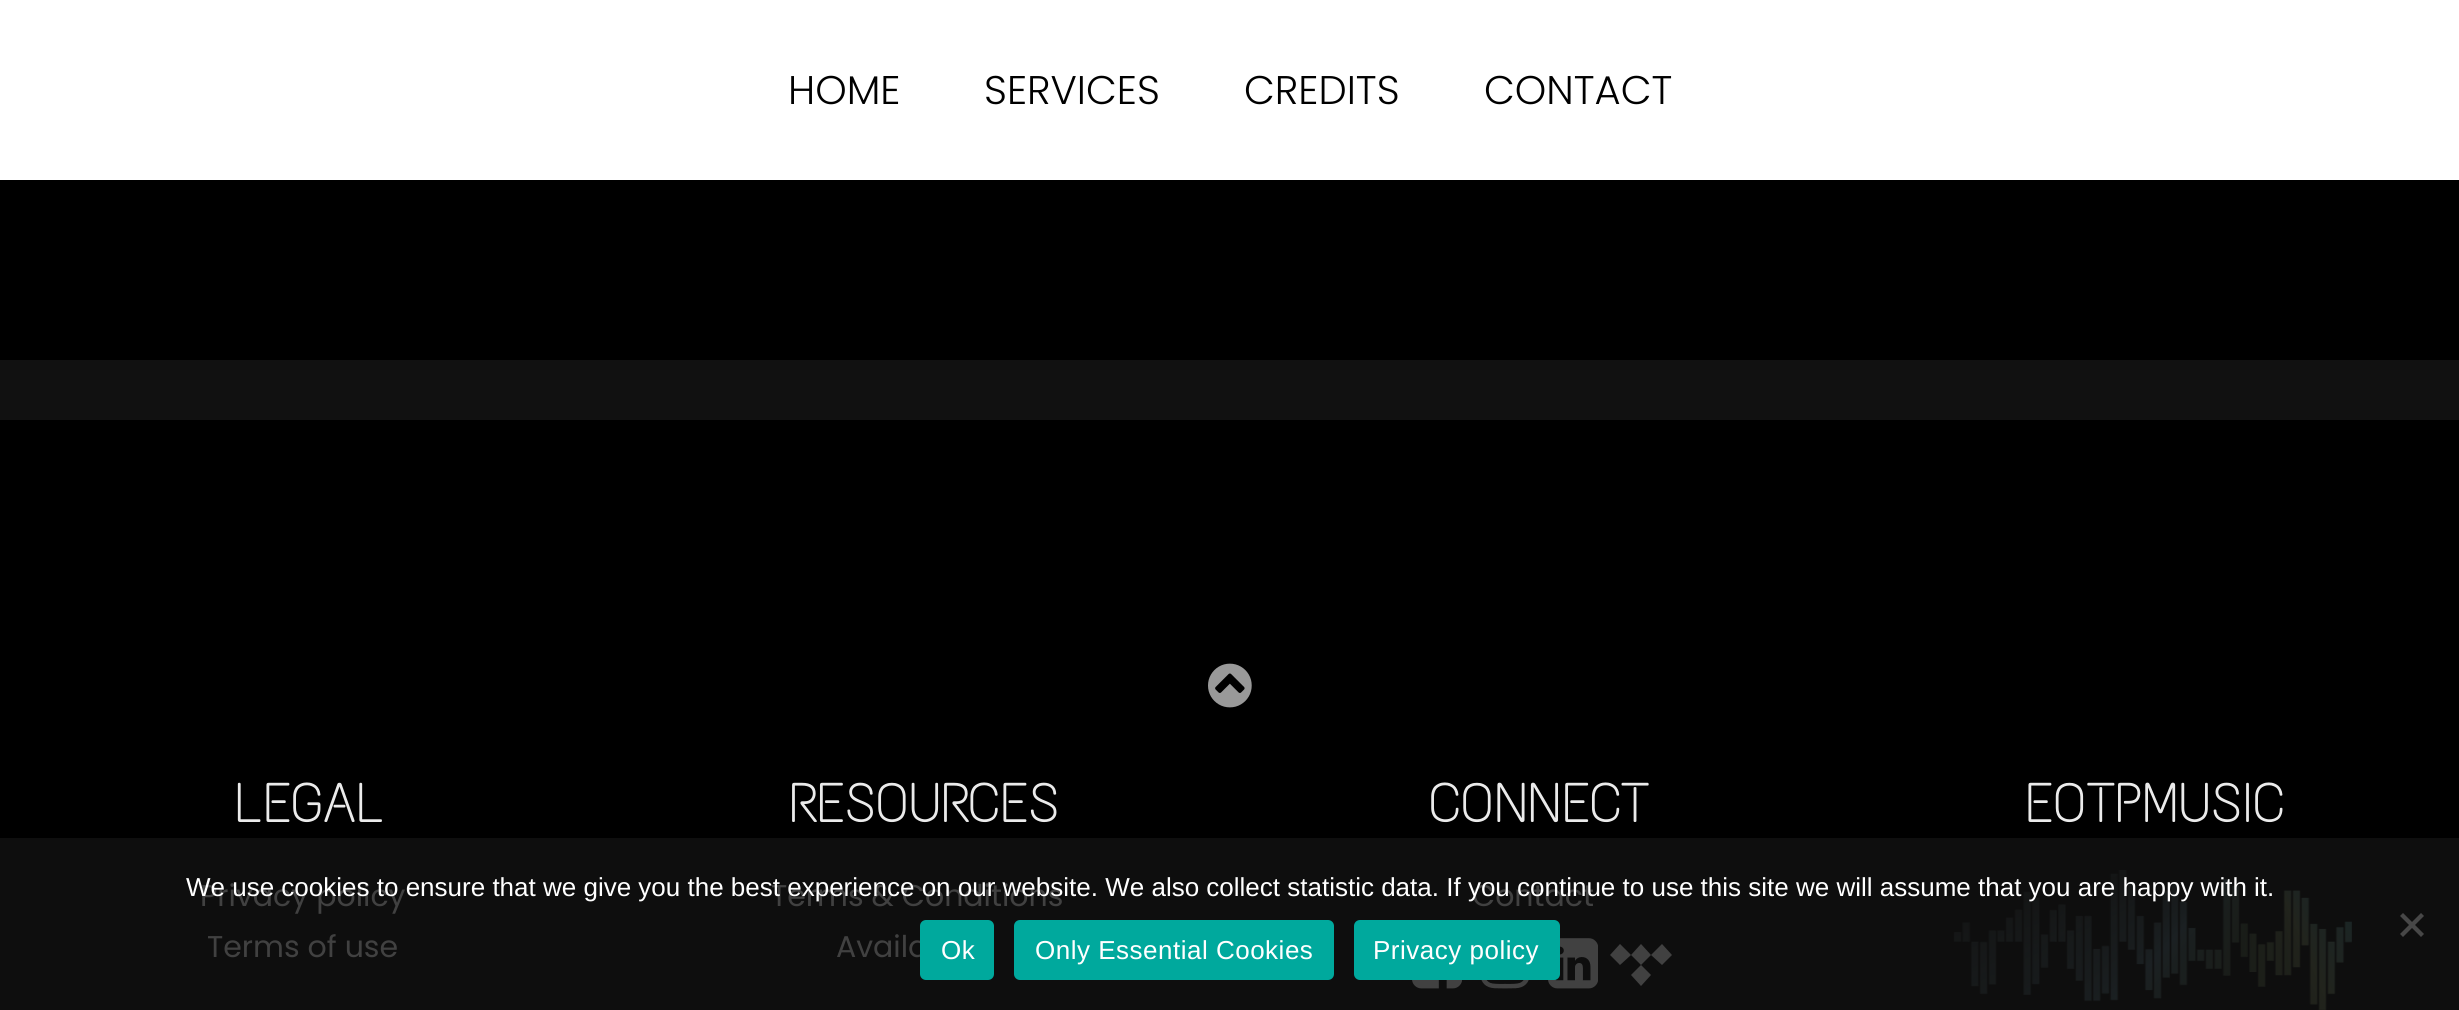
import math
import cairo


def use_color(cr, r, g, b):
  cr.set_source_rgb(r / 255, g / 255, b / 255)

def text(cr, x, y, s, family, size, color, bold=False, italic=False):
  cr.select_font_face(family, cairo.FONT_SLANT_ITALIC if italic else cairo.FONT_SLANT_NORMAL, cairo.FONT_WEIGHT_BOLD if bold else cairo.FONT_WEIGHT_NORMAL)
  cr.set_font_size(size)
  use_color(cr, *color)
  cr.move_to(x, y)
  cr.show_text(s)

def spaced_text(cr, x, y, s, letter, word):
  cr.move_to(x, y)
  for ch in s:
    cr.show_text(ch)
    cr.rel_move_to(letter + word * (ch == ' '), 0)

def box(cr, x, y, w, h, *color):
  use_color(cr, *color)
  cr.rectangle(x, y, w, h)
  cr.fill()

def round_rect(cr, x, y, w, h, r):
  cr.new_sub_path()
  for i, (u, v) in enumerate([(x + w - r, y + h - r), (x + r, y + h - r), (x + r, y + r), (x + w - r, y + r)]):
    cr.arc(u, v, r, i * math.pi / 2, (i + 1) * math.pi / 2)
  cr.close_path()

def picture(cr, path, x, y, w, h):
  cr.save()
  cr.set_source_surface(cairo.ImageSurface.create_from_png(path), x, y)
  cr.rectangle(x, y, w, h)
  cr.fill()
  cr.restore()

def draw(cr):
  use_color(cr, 0, 0, 0)
  cr.paint()
  box(cr, 0, 0, 2459, 180, 255, 255, 255)
  box(cr, 0, 360, 2459, 60, 17, 17, 17)
  box(cr, 0, 838, 2459, 172, 14, 14, 14)
  picture(cr, "img_01.png", 1208, 663, 44, 45)
  picture(cr, "img_02.png", 1412, 980, 50, 9)
  picture(cr, "img_03.png", 1481, 980, 48, 9)
  picture(cr, "img_04.png", 1548, 938, 50, 51)
  use_color(cr, 65, 65, 65)
  cr.new_path()
  cr.move_to(1610, 955)
  cr.line_to(1620, 944)
  cr.line_to(1631, 955)
  cr.line_to(1620, 965)
  cr.close_path()
  cr.move_to(1662, 965)
  cr.line_to(1672, 955)
  cr.line_to(1662, 944)
  cr.line_to(1651, 955)
  cr.line_to(1641, 944)
  cr.line_to(1631, 955)
  cr.line_to(1641, 965)
  cr.line_to(1631, 975)
  cr.line_to(1641, 986)
  cr.line_to(1651, 975)
  cr.line_to(1641, 965)
  cr.line_to(1651, 955)
  cr.close_path()
  cr.fill()
  picture(cr, "img_05.png", 1953, 870, 399, 140)
  use_color(cr, 71, 71, 71)
  cr.new_path()
  cr.move_to(2421, 913)
  cr.line_to(2424, 916)
  cr.line_to(2403, 937)
  cr.line_to(2400, 934)
  cr.close_path()
  cr.fill()
  cr.new_path()
  cr.move_to(2400, 916)
  cr.line_to(2403, 913)
  cr.line_to(2424, 934)
  cr.line_to(2421, 937)
  cr.close_path()
  cr.fill()
  use_color(cr, 0, 169, 157)
  round_rect(cr, 1014, 920, 320, 60, 6)
  cr.fill()
  round_rect(cr, 1354, 920, 206, 60, 6)
  cr.fill()
  text(cr, 788, 104, "HOME", "Poppins Light", 40, (0, 0, 0))
  text(cr, 984, 104, "SERVICES", "Poppins Light", 40, (0, 0, 0))
  text(cr, 1244, 104, "CREDITS", "Poppins Light", 40, (0, 0, 0))
  text(cr, 1484, 104, "CONTACT", "Poppins Light", 40, (0, 0, 0))
  text(cr, 235, 822, "LEGAL", "Text Me One", 56, (235, 235, 235))
  text(cr, 200, 906, "Privacy policy", "Poppins", 30, (65, 65, 65))
  text(cr, 207, 957, "Terms of use", "Poppins", 30, (65, 65, 65))
  text(cr, 789, 822, "RESOURCES", "Text Me One", 56, (235, 235, 235))
  text(cr, 771, 906, "Terms & Conditions", "Poppins", 30, (65, 65, 65))
  text(cr, 836, 957, "Availa", "Poppins", 30, (65, 65, 65))
  text(cr, 1429, 822, "CONNECT", "Text Me One", 56, (235, 235, 235))
  text(cr, 1472, 906, "Contact", "Poppins", 30, (65, 65, 65))
  text(cr, 2025, 822, "EOTPMUSIC", "Text Me One", 56, (235, 235, 235))
  text(cr, 186, 896, "We use cookies to ensure that we give you the best experience on our website. We also collect statistic data. If you continue to use this site we will assume that you are happy with it.", "Liberation Sans", 26, (255, 255, 255))
  use_color(cr, 0, 169, 157)
  round_rect(cr, 920, 920, 74, 60, 6)
  cr.fill()
  use_color(cr, 255, 255, 255)
  spaced_text(cr, 941, 959, "Ok", 0.5, 0)
  spaced_text(cr, 1035, 959, "Only Essential Cookies", 0.5, 0)
  spaced_text(cr, 1373, 959, "Privacy policy", 0.5, 0)


surface = cairo.ImageSurface(cairo.FORMAT_RGB24, 2459, 1010)
cr = cairo.Context(surface)
options = cairo.FontOptions()
options.set_hint_metrics(cairo.HINT_METRICS_OFF)
options.set_hint_style(cairo.HINT_STYLE_NONE)
cr.set_font_options(options)
cr.set_miter_limit(4)
draw(cr)
surface.write_to_png("out.png")
